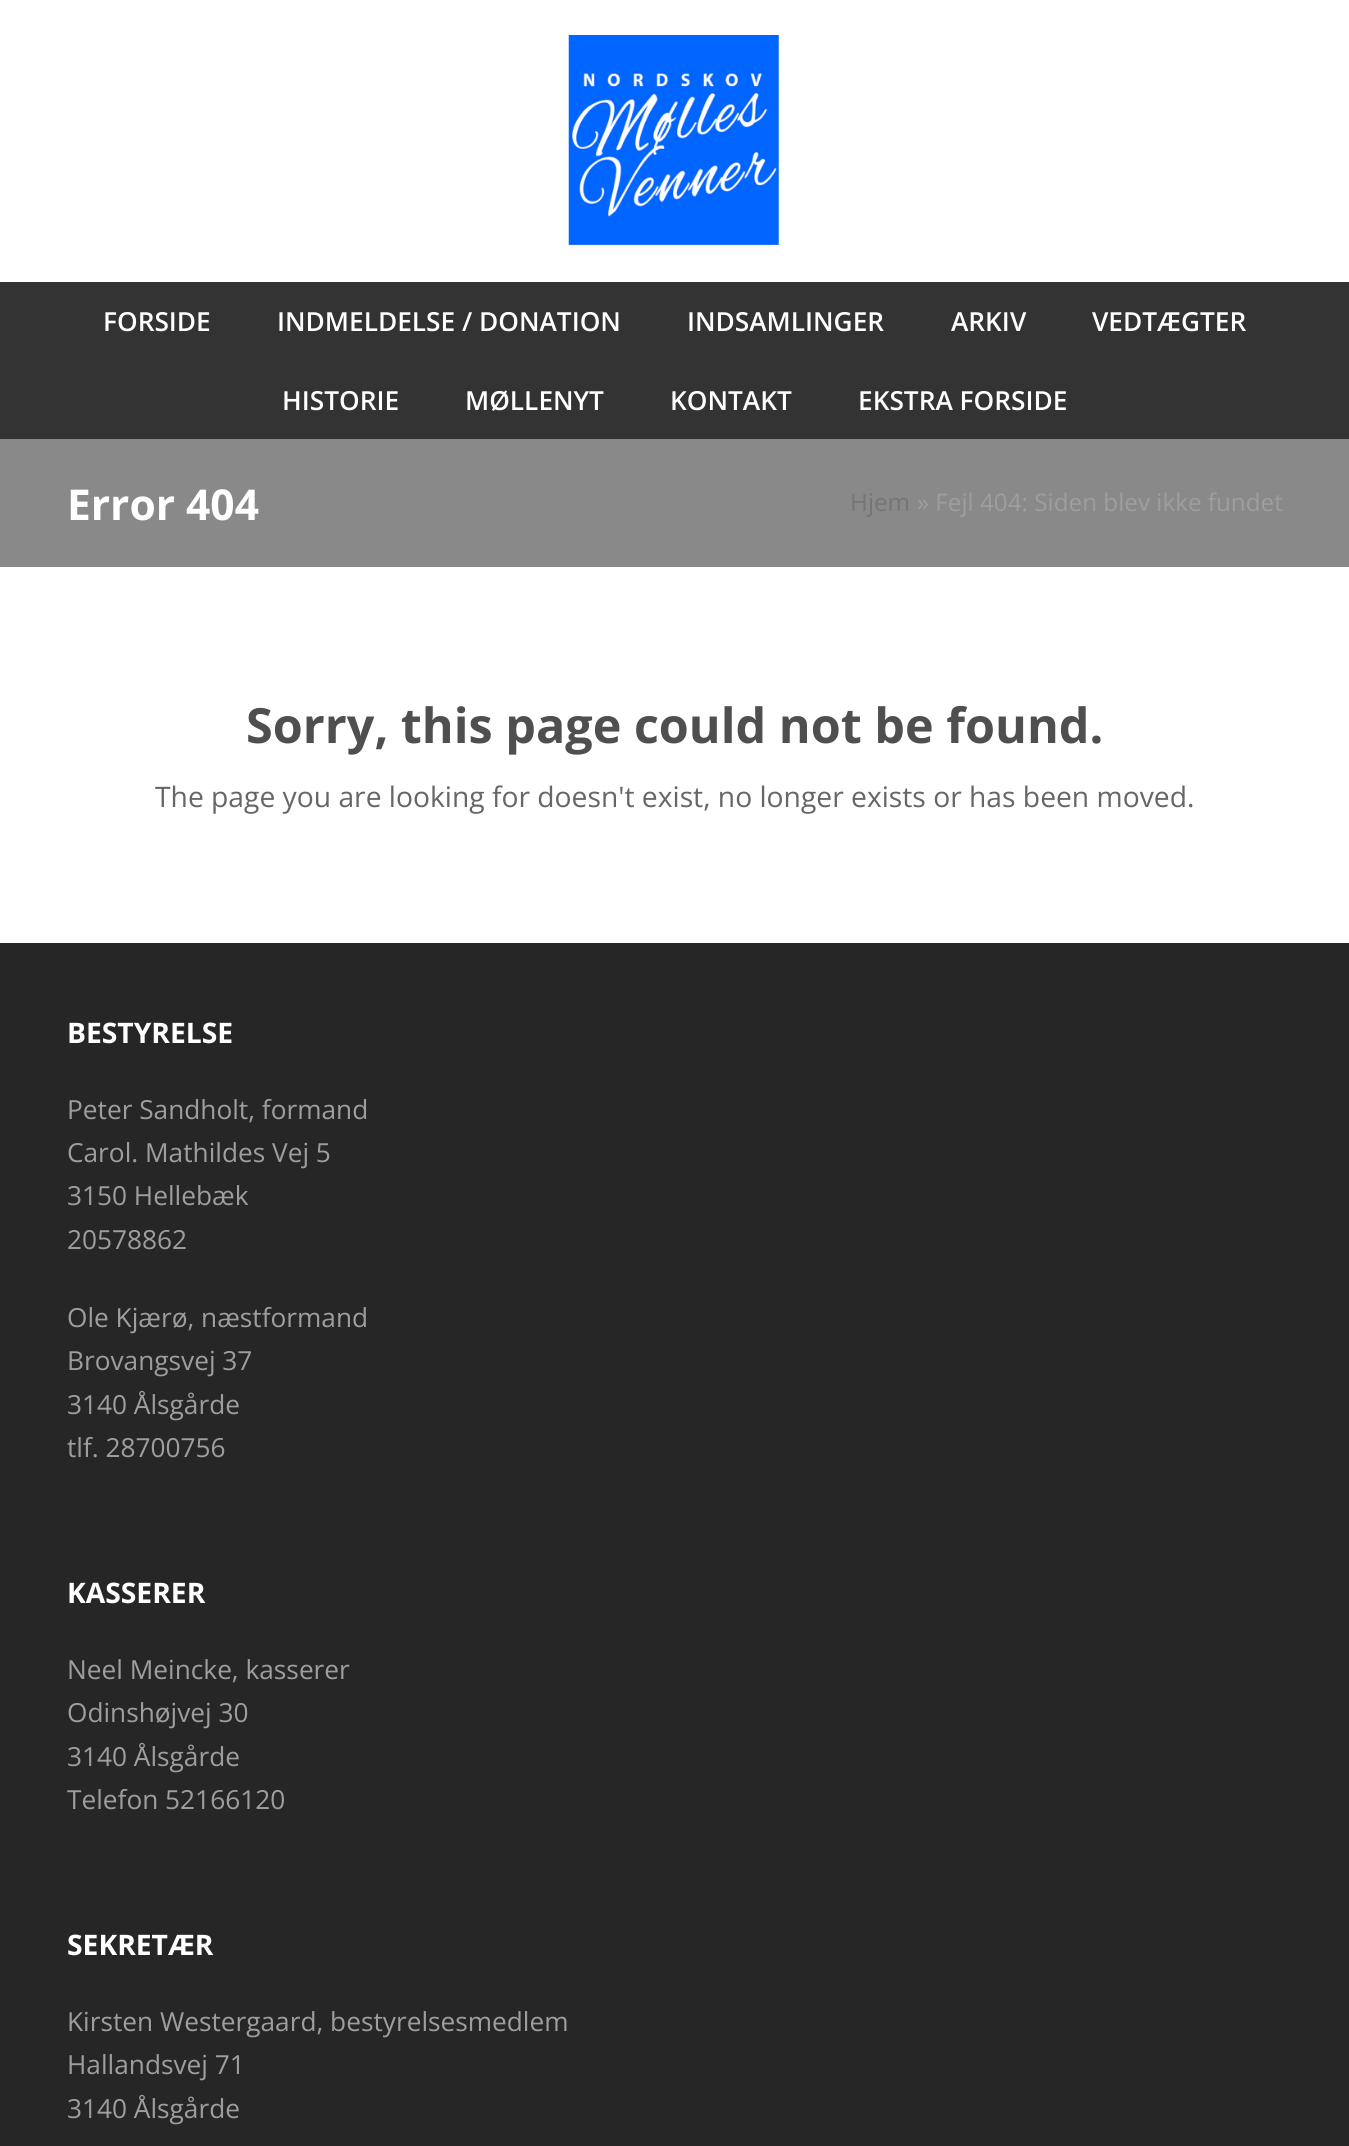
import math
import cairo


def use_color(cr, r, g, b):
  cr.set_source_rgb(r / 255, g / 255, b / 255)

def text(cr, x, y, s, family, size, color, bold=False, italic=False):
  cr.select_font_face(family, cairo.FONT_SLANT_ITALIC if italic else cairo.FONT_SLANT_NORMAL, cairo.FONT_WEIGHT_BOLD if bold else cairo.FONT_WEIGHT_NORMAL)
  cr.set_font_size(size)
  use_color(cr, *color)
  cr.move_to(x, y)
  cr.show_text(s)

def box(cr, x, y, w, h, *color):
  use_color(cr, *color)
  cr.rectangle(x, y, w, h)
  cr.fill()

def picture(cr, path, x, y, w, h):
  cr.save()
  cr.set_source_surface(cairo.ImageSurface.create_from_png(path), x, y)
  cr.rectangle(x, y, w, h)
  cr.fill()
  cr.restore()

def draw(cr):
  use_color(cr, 255, 255, 255)
  cr.paint()
  picture(cr, "img_01.png", 568, 35, 211, 210)
  box(cr, 0, 282, 1349, 157, 51, 51, 51)
  box(cr, 0, 439, 1349, 128, 137, 137, 137)
  box(cr, 0, 943, 1349, 1203, 38, 38, 38)
  text(cr, 103, 331, "FORSIDE", "Open Sans SemiBold", 26.25, (255, 255, 255))
  text(cr, 277, 331, "INDMELDELSE / DONATION", "Open Sans SemiBold", 26.25, (255, 255, 255))
  text(cr, 687, 331, "INDSAMLINGER", "Open Sans SemiBold", 26.25, (255, 255, 255))
  text(cr, 951, 331, "ARKIV", "Open Sans SemiBold", 26.25, (255, 255, 255))
  text(cr, 1092, 331, "VEDTÆGTER", "Open Sans SemiBold", 26.25, (255, 255, 255))
  text(cr, 282, 410, "HISTORIE", "Open Sans SemiBold", 26.25, (255, 255, 255))
  text(cr, 465, 410, "MØLLENYT", "Open Sans SemiBold", 26.25, (255, 255, 255))
  text(cr, 670, 410, "KONTAKT", "Open Sans SemiBold", 26.25, (255, 255, 255))
  text(cr, 858, 410, "EKSTRA FORSIDE", "Open Sans SemiBold", 26.25, (255, 255, 255))
  text(cr, 67, 520, "Error 404", "Open Sans", 42.5, (255, 255, 255), bold=True)
  text(cr, 850, 511, "Hjem", "Open Sans", 24.25, (117, 117, 117))
  text(cr, 917, 511, "» Fejl 404: Siden blev ikke fundet", "Open Sans", 24.25, (158, 158, 158))
  text(cr, 246, 743, "Sorry, this page could not be found.", "Open Sans", 48.5, (79, 79, 79), bold=True)
  text(cr, 155, 807, "The page you are looking for doesn't exist, no longer exists or has been moved.", "Open Sans", 28.25, (102, 102, 102))
  text(cr, 67, 1043, "BESTYRELSE", "Open Sans", 28.25, (255, 255, 255), bold=True)
  text(cr, 67, 1119, "Peter Sandholt, formand", "Open Sans", 26.25, (158, 158, 158))
  text(cr, 67, 1162, "Carol. Mathildes Vej 5", "Open Sans", 26.25, (158, 158, 158))
  text(cr, 67, 1205, "3150 Hellebæk", "Open Sans", 26.25, (158, 158, 158))
  text(cr, 67, 1249, "20578862", "Open Sans", 26.25, (158, 158, 158))
  text(cr, 67, 1327, "Ole Kjærø, næstformand", "Open Sans", 26.25, (158, 158, 158))
  text(cr, 67, 1370, "Brovangsvej 37", "Open Sans", 26.25, (158, 158, 158))
  text(cr, 67, 1414, "3140 Ålsgårde", "Open Sans", 26.25, (158, 158, 158))
  text(cr, 67, 1457, "tlf. 28700756", "Open Sans", 26.25, (158, 158, 158))
  text(cr, 67, 1603, "KASSERER", "Open Sans", 28.25, (255, 255, 255), bold=True)
  text(cr, 67, 1679, "Neel Meincke, kasserer", "Open Sans", 26.25, (158, 158, 158))
  text(cr, 67, 1722, "Odinshøjvej 30", "Open Sans", 26.25, (158, 158, 158))
  text(cr, 67, 1766, "3140 Ålsgårde", "Open Sans", 26.25, (158, 158, 158))
  text(cr, 67, 1809, "Telefon 52166120", "Open Sans", 26.25, (158, 158, 158))
  text(cr, 67, 1955, "SEKRETÆR", "Open Sans", 28.25, (255, 255, 255), bold=True)
  text(cr, 67, 2031, "Kirsten Westergaard, bestyrelsesmedlem", "Open Sans", 26.25, (158, 158, 158))
  text(cr, 67, 2074, "Hallandsvej 71", "Open Sans", 26.25, (158, 158, 158))
  text(cr, 67, 2118, "3140 Ålsgårde", "Open Sans", 26.25, (158, 158, 158))


surface = cairo.ImageSurface(cairo.FORMAT_RGB24, 1349, 2146)
cr = cairo.Context(surface)
options = cairo.FontOptions()
options.set_hint_metrics(cairo.HINT_METRICS_OFF)
options.set_hint_style(cairo.HINT_STYLE_NONE)
cr.set_font_options(options)
cr.set_miter_limit(4)
draw(cr)
surface.write_to_png("out.png")
